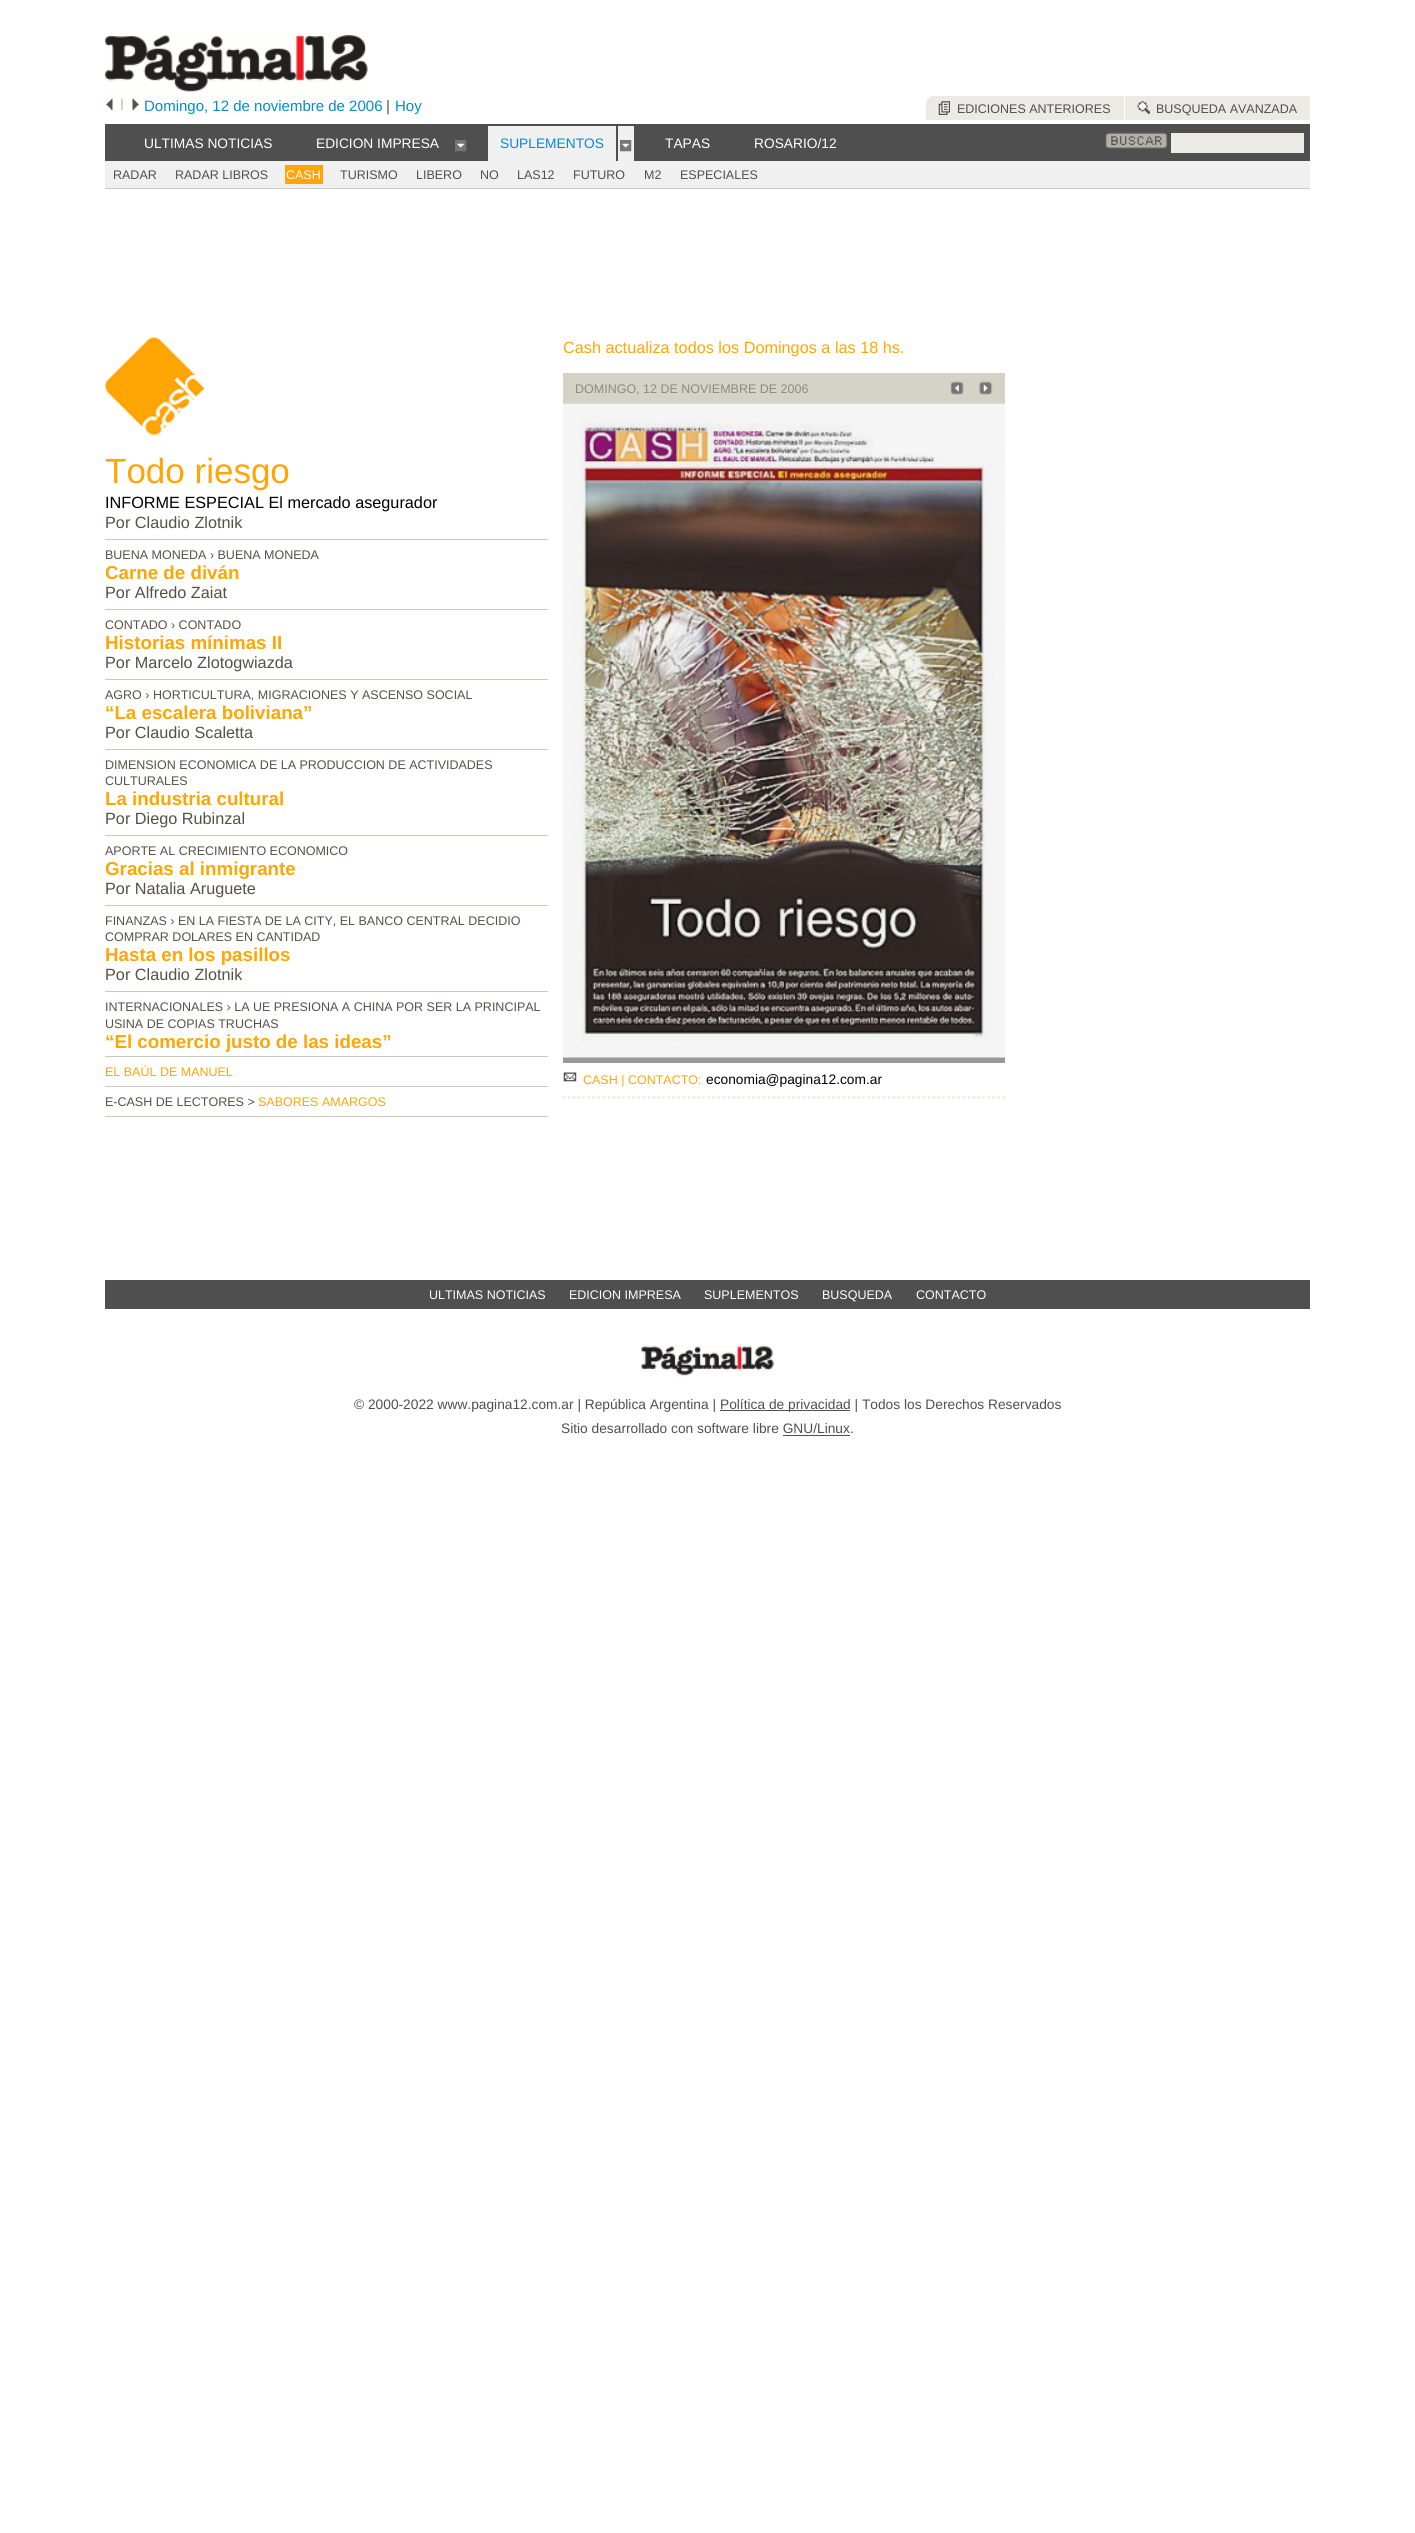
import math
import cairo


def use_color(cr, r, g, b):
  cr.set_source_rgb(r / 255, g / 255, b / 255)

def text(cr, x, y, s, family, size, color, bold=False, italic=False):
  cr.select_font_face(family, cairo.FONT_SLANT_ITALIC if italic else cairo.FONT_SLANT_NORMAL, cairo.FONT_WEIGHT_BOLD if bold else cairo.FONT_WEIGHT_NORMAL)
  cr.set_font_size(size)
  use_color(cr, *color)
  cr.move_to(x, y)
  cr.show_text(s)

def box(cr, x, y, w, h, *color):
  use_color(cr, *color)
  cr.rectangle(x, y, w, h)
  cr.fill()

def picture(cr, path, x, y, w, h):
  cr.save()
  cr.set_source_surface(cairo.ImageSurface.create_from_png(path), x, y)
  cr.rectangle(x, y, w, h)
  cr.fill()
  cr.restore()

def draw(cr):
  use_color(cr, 255, 255, 255)
  cr.paint()
  picture(cr, "img_01.png", 105, 35, 263, 57)
  picture(cr, "img_02.png", 106, 98, 7, 13)
  picture(cr, "img_03.png", 121, 98, 2, 13)
  picture(cr, "img_04.png", 132, 98, 7, 13)
  box(cr, 926, 96, 198, 24, 235, 234, 229)
  picture(cr, "img_05.png", 926, 96, 6, 6)
  picture(cr, "img_06.png", 938, 101, 12, 14)
  box(cr, 1125, 96, 185, 24, 235, 234, 229)
  picture(cr, "img_07.png", 1137, 101, 13, 13)
  box(cr, 105, 124, 1205, 37, 80, 79, 79)
  picture(cr, "img_08.png", 455, 140, 12, 12)
  box(cr, 488, 126, 128, 35, 240, 240, 240)
  box(cr, 618, 126, 16, 35, 240, 240, 240)
  picture(cr, "img_09.png", 620, 140, 12, 12)
  picture(cr, "img_10.png", 1105, 132, 63, 17)
  box(cr, 1171, 133, 133, 20, 235, 234, 229)
  box(cr, 105, 161, 1205, 27, 240, 240, 240)
  box(cr, 105, 188, 1205, 1, 204, 201, 189)
  box(cr, 285, 165, 38, 19, 255, 166, 5)
  picture(cr, "img_11.png", 105, 337, 100, 99)
  box(cr, 105, 539, 443, 1, 204, 201, 189)
  box(cr, 105, 609, 443, 1, 204, 201, 189)
  box(cr, 105, 679, 443, 1, 204, 201, 189)
  box(cr, 105, 749, 443, 1, 204, 201, 189)
  box(cr, 105, 835, 443, 1, 204, 201, 189)
  box(cr, 105, 905, 443, 1, 204, 201, 189)
  box(cr, 105, 991, 443, 1, 204, 201, 189)
  box(cr, 105, 1056, 443, 1, 204, 201, 189)
  box(cr, 105, 1086, 443, 1, 204, 201, 189)
  box(cr, 105, 1116, 443, 1, 204, 201, 189)
  box(cr, 563, 373, 442, 31, 213, 210, 199)
  picture(cr, "img_12.png", 950, 381, 14, 14)
  picture(cr, "img_13.png", 978, 381, 15, 14)
  box(cr, 563, 404, 442, 659, 153, 153, 153)
  picture(cr, "img_14.png", 563, 403, 442, 655)
  cr.new_path()
  cr.move_to(562.5, 1097.5)
  cr.line_to(1005, 1097.5)
  use_color(cr, 235, 234, 229)
  cr.set_line_width(2.5)
  cr.set_dash([2.5, 2.5])
  cr.stroke()
  picture(cr, "img_15.png", 563, 1072, 14, 10)
  box(cr, 105, 1280, 1205, 29, 80, 79, 79)
  picture(cr, "img_16.png", 641, 1345, 134, 32)
  box(cr, 720, 1410, 130, 1, 80, 79, 79)
  box(cr, 783, 1435, 67, 1, 80, 79, 79)
  text(cr, 144, 111, "Domingo, 12 de noviembre de 2006", "Liberation Sans", 15, (2, 140, 205))
  text(cr, 386, 111, "|", "Liberation Sans", 15, (80, 79, 79))
  text(cr, 395, 111, "Hoy", "Liberation Sans", 15, (2, 140, 205))
  text(cr, 957, 113, "EDICIONES ANTERIORES", "Liberation Sans", 12.5, (80, 79, 79))
  text(cr, 1156, 113, "BUSQUEDA AVANZADA", "Liberation Sans", 12.5, (80, 79, 79))
  text(cr, 144, 148, "ULTIMAS NOTICIAS", "Liberation Sans", 13.75, (255, 255, 255))
  text(cr, 316, 148, "EDICION IMPRESA", "Liberation Sans", 13.75, (255, 255, 255))
  text(cr, 500, 148, "SUPLEMENTOS", "Liberation Sans", 13.75, (2, 140, 205))
  text(cr, 665, 148, "TAPAS", "Liberation Sans", 13.75, (255, 255, 255))
  text(cr, 754, 148, "ROSARIO/12", "Liberation Sans", 13.75, (255, 255, 255))
  text(cr, 113, 179, "RADAR", "Liberation Sans", 12.5, (80, 79, 79))
  text(cr, 175, 179, "RADAR LIBROS", "Liberation Sans", 12.5, (80, 79, 79))
  text(cr, 286, 179, "CASH", "Liberation Sans", 12.5, (255, 255, 255))
  text(cr, 340, 179, "TURISMO", "Liberation Sans", 12.5, (80, 79, 79))
  text(cr, 416, 179, "LIBERO", "Liberation Sans", 12.5, (80, 79, 79))
  text(cr, 480, 179, "NO", "Liberation Sans", 12.5, (80, 79, 79))
  text(cr, 517, 179, "LAS12", "Liberation Sans", 12.5, (80, 79, 79))
  text(cr, 573, 179, "FUTURO", "Liberation Sans", 12.5, (80, 79, 79))
  text(cr, 644, 179, "M2", "Liberation Sans", 12.5, (80, 79, 79))
  text(cr, 680, 179, "ESPECIALES", "Liberation Sans", 12.5, (80, 79, 79))
  text(cr, 105, 483, "Todo riesgo", "Liberation Sans", 35, (255, 166, 5))
  text(cr, 105, 508, "INFORME ESPECIAL El mercado asegurador", "Liberation Sans", 16.25, (0, 0, 0))
  text(cr, 105, 528, "Por Claudio Zlotnik", "Liberation Sans", 16.25, (86, 81, 68))
  text(cr, 105, 559, "BUENA MONEDA › BUENA MONEDA", "Liberation Sans", 12.5, (86, 81, 68))
  text(cr, 105, 579, "Carne de diván", "Liberation Sans", 18.75, (255, 166, 5), bold=True)
  text(cr, 105, 598, "Por Alfredo Zaiat", "Liberation Sans", 16.25, (86, 81, 68))
  text(cr, 105, 629, "CONTADO › CONTADO", "Liberation Sans", 12.5, (86, 81, 68))
  text(cr, 105, 649, "Historias mínimas II", "Liberation Sans", 18.75, (255, 166, 5), bold=True)
  text(cr, 105, 668, "Por Marcelo Zlotogwiazda", "Liberation Sans", 16.25, (86, 81, 68))
  text(cr, 105, 699, "AGRO › HORTICULTURA, MIGRACIONES Y ASCENSO SOCIAL", "Liberation Sans", 12.5, (86, 81, 68))
  text(cr, 105, 719, "“La escalera boliviana”", "Liberation Sans", 18.75, (255, 166, 5), bold=True)
  text(cr, 105, 738, "Por Claudio Scaletta", "Liberation Sans", 16.25, (86, 81, 68))
  text(cr, 105, 769, "DIMENSION ECONOMICA DE LA PRODUCCION DE ACTIVIDADES", "Liberation Sans", 12.5, (86, 81, 68))
  text(cr, 105, 785, "CULTURALES", "Liberation Sans", 12.5, (86, 81, 68))
  text(cr, 105, 805, "La industria cultural", "Liberation Sans", 18.75, (255, 166, 5), bold=True)
  text(cr, 105, 824, "Por Diego Rubinzal", "Liberation Sans", 16.25, (86, 81, 68))
  text(cr, 105, 855, "APORTE AL CRECIMIENTO ECONOMICO", "Liberation Sans", 12.5, (86, 81, 68))
  text(cr, 105, 875, "Gracias al inmigrante", "Liberation Sans", 18.75, (255, 166, 5), bold=True)
  text(cr, 105, 894, "Por Natalia Aruguete", "Liberation Sans", 16.25, (86, 81, 68))
  text(cr, 105, 925, "FINANZAS › EN LA FIESTA DE LA CITY, EL BANCO CENTRAL DECIDIO", "Liberation Sans", 12.5, (86, 81, 68))
  text(cr, 105, 941, "COMPRAR DOLARES EN CANTIDAD", "Liberation Sans", 12.5, (86, 81, 68))
  text(cr, 105, 961, "Hasta en los pasillos", "Liberation Sans", 18.75, (255, 166, 5), bold=True)
  text(cr, 105, 980, "Por Claudio Zlotnik", "Liberation Sans", 16.25, (86, 81, 68))
  text(cr, 105, 1011, "INTERNACIONALES › LA UE PRESIONA A CHINA POR SER LA PRINCIPAL", "Liberation Sans", 12.5, (86, 81, 68))
  text(cr, 105, 1028, "USINA DE COPIAS TRUCHAS", "Liberation Sans", 12.5, (86, 81, 68))
  text(cr, 105, 1048, "“El comercio justo de las ideas”", "Liberation Sans", 18.75, (255, 166, 5), bold=True)
  text(cr, 105, 1076, "EL BAÚL DE MANUEL", "Liberation Sans", 12.5, (255, 166, 5))
  text(cr, 105, 1106, "E-CASH DE LECTORES >", "Liberation Sans", 12.5, (86, 81, 68))
  text(cr, 258, 1106, "SABORES AMARGOS", "Liberation Sans", 12.5, (255, 166, 5))
  text(cr, 563, 353, "Cash actualiza todos los Domingos a las 18 hs.", "Liberation Sans", 16.25, (255, 166, 5))
  text(cr, 575, 393, "DOMINGO, 12 DE NOVIEMBRE DE 2006", "Liberation Sans", 12.5, (142, 138, 123))
  text(cr, 583, 1084, "CASH | CONTACTO:", "Liberation Sans", 12.5, (255, 166, 5))
  text(cr, 706, 1084, "economia@pagina12.com.ar", "Liberation Sans", 13.75, (0, 0, 0))
  text(cr, 429, 1299, "ULTIMAS NOTICIAS", "Liberation Sans", 12.5, (255, 255, 255))
  text(cr, 569, 1299, "EDICION IMPRESA", "Liberation Sans", 12.5, (255, 255, 255))
  text(cr, 704, 1299, "SUPLEMENTOS", "Liberation Sans", 12.5, (255, 255, 255))
  text(cr, 822, 1299, "BUSQUEDA", "Liberation Sans", 12.5, (255, 255, 255))
  text(cr, 916, 1299, "CONTACTO", "Liberation Sans", 12.5, (255, 255, 255))
  text(cr, 354, 1409, "© 2000-2022 www.pagina12.com.ar | República Argentina |", "Liberation Sans", 13.75, (80, 79, 79))
  text(cr, 720, 1409, "Política de privacidad | Todos los Derechos Reservados", "Liberation Sans", 13.75, (80, 79, 79))
  text(cr, 561, 1433, "Sitio desarrollado con software libre GNU/Linux.", "Liberation Sans", 13.75, (80, 79, 79))


surface = cairo.ImageSurface(cairo.FORMAT_RGB24, 1415, 2533)
cr = cairo.Context(surface)
options = cairo.FontOptions()
options.set_hint_metrics(cairo.HINT_METRICS_OFF)
options.set_hint_style(cairo.HINT_STYLE_NONE)
cr.set_font_options(options)
cr.set_miter_limit(4)
draw(cr)
surface.write_to_png("out.png")
